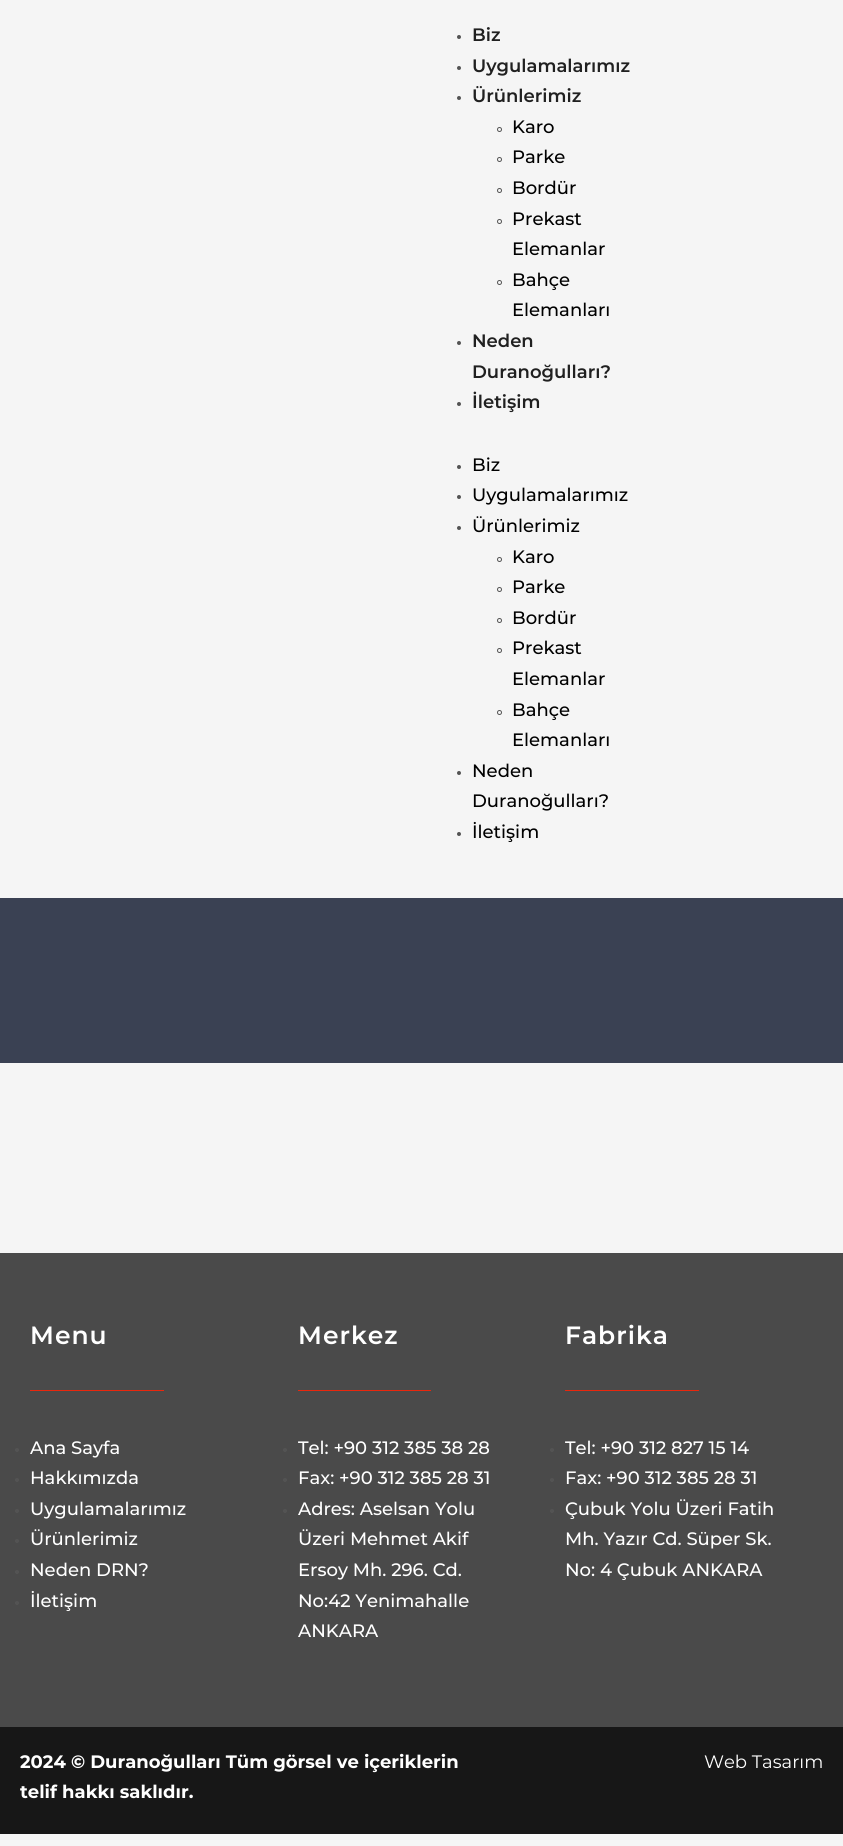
import math
import cairo


def use_color(cr, r, g, b):
  cr.set_source_rgb(r / 255, g / 255, b / 255)

def text(cr, x, y, s, family, size, color, bold=False, italic=False):
  cr.select_font_face(family, cairo.FONT_SLANT_ITALIC if italic else cairo.FONT_SLANT_NORMAL, cairo.FONT_WEIGHT_BOLD if bold else cairo.FONT_WEIGHT_NORMAL)
  cr.set_font_size(size)
  use_color(cr, *color)
  cr.move_to(x, y)
  cr.show_text(s)

def spaced_text(cr, x, y, s, letter, word):
  cr.move_to(x, y)
  for ch in s:
    cr.show_text(ch)
    cr.rel_move_to(letter + word * (ch == ' '), 0)

def box(cr, x, y, w, h, *color):
  use_color(cr, *color)
  cr.rectangle(x, y, w, h)
  cr.fill()

def draw(cr):
  use_color(cr, 245, 245, 245)
  cr.paint()
  use_color(cr, 83, 83, 83)
  cr.arc(459, 37, 2, 0, 2 * math.pi)
  cr.fill()
  cr.arc(459, 68, 2, 0, 2 * math.pi)
  cr.fill()
  cr.arc(459, 98, 2, 0, 2 * math.pi)
  cr.fill()
  cr.arc(499.5, 129.5, 2, 0, 2 * math.pi)
  cr.set_line_width(1)
  cr.stroke()
  cr.arc(499.5, 159.5, 2, 0, 2 * math.pi)
  cr.stroke()
  cr.arc(499.5, 190.5, 2, 0, 2 * math.pi)
  cr.stroke()
  cr.arc(499.5, 221.5, 2, 0, 2 * math.pi)
  cr.stroke()
  cr.arc(499.5, 282.5, 2, 0, 2 * math.pi)
  cr.stroke()
  cr.arc(459, 343, 2, 0, 2 * math.pi)
  cr.fill()
  cr.arc(459, 404, 2, 0, 2 * math.pi)
  cr.fill()
  cr.arc(459, 467, 2, 0, 2 * math.pi)
  cr.fill()
  cr.arc(459, 497, 2, 0, 2 * math.pi)
  cr.fill()
  cr.arc(459, 528, 2, 0, 2 * math.pi)
  cr.fill()
  cr.arc(499.5, 559.5, 2, 0, 2 * math.pi)
  cr.stroke()
  cr.arc(499.5, 589.5, 2, 0, 2 * math.pi)
  cr.stroke()
  cr.arc(499.5, 620.5, 2, 0, 2 * math.pi)
  cr.stroke()
  cr.arc(499.5, 650.5, 2, 0, 2 * math.pi)
  cr.stroke()
  cr.arc(499.5, 712.5, 2, 0, 2 * math.pi)
  cr.stroke()
  cr.arc(459, 773, 2, 0, 2 * math.pi)
  cr.fill()
  cr.arc(459, 834, 2, 0, 2 * math.pi)
  cr.fill()
  box(cr, 0, 898, 843, 165, 58, 65, 83)
  box(cr, 0, 1253, 843, 474, 74, 74, 74)
  box(cr, 30, 1390, 134, 1, 233, 39, 13)
  use_color(cr, 83, 83, 83)
  cr.arc(17, 1450, 2, 0, 2 * math.pi)
  cr.fill()
  cr.arc(17, 1480, 2, 0, 2 * math.pi)
  cr.fill()
  cr.arc(17, 1511, 2, 0, 2 * math.pi)
  cr.fill()
  cr.arc(17, 1541, 2, 0, 2 * math.pi)
  cr.fill()
  cr.arc(17, 1572, 2, 0, 2 * math.pi)
  cr.fill()
  cr.arc(17, 1603, 2, 0, 2 * math.pi)
  cr.fill()
  box(cr, 298, 1390, 133, 1, 233, 39, 13)
  use_color(cr, 83, 83, 83)
  cr.arc(285, 1450, 2, 0, 2 * math.pi)
  cr.fill()
  cr.arc(285, 1480, 2, 0, 2 * math.pi)
  cr.fill()
  cr.arc(285, 1511, 2, 0, 2 * math.pi)
  cr.fill()
  box(cr, 565, 1390, 134, 1, 233, 39, 13)
  use_color(cr, 83, 83, 83)
  cr.arc(552, 1450, 2, 0, 2 * math.pi)
  cr.fill()
  cr.arc(552, 1480, 2, 0, 2 * math.pi)
  cr.fill()
  cr.arc(552, 1511, 2, 0, 2 * math.pi)
  cr.fill()
  box(cr, 0, 1727, 843, 107, 23, 23, 23)
  text(cr, 472, 41, "Biz", "Montserrat SemiBold", 18, (32, 32, 32))
  text(cr, 472, 72, "Uygulamalarımız", "Montserrat SemiBold", 18, (32, 32, 32))
  text(cr, 472, 102, "Ürünlerimiz", "Montserrat SemiBold", 18, (32, 32, 32))
  text(cr, 512, 133, "Karo", "Montserrat Medium", 18, (0, 0, 0))
  text(cr, 512, 163, "Parke", "Montserrat Medium", 18, (0, 0, 0))
  text(cr, 512, 194, "Bordür", "Montserrat Medium", 18, (0, 0, 0))
  text(cr, 512, 225, "Prekast", "Montserrat Medium", 18, (0, 0, 0))
  text(cr, 512, 255, "Elemanlar", "Montserrat Medium", 18, (0, 0, 0))
  text(cr, 512, 286, "Bahçe", "Montserrat Medium", 18, (0, 0, 0))
  text(cr, 512, 316, "Elemanları", "Montserrat Medium", 18, (0, 0, 0))
  text(cr, 472, 347, "Neden", "Montserrat SemiBold", 18, (32, 32, 32))
  text(cr, 472, 378, "Duranoğulları?", "Montserrat SemiBold", 18, (32, 32, 32))
  text(cr, 472, 408, "İletişim", "Montserrat SemiBold", 18, (32, 32, 32))
  text(cr, 472, 471, "Biz", "Montserrat Medium", 18, (0, 0, 0))
  text(cr, 472, 501, "Uygulamalarımız", "Montserrat Medium", 18, (0, 0, 0))
  text(cr, 472, 532, "Ürünlerimiz", "Montserrat Medium", 18, (0, 0, 0))
  text(cr, 512, 563, "Karo", "Montserrat Medium", 18, (0, 0, 0))
  text(cr, 512, 593, "Parke", "Montserrat Medium", 18, (0, 0, 0))
  text(cr, 512, 624, "Bordür", "Montserrat Medium", 18, (0, 0, 0))
  text(cr, 512, 654, "Prekast", "Montserrat Medium", 18, (0, 0, 0))
  text(cr, 512, 685, "Elemanlar", "Montserrat Medium", 18, (0, 0, 0))
  text(cr, 512, 716, "Bahçe", "Montserrat Medium", 18, (0, 0, 0))
  text(cr, 512, 746, "Elemanları", "Montserrat Medium", 18, (0, 0, 0))
  text(cr, 472, 777, "Neden", "Montserrat Medium", 18, (0, 0, 0))
  text(cr, 472, 807, "Duranoğulları?", "Montserrat Medium", 18, (0, 0, 0))
  text(cr, 472, 838, "İletişim", "Montserrat Medium", 18, (0, 0, 0))
  cr.select_font_face("Montserrat SemiBold")
  cr.set_font_size(25)
  use_color(cr, 255, 255, 255)
  spaced_text(cr, 30, 1344, "Menu", 1, 0)
  text(cr, 30, 1454, "Ana Sayfa", "Montserrat Medium", 18, (255, 255, 255))
  text(cr, 30, 1484, "Hakkımızda", "Montserrat Medium", 18, (255, 255, 255))
  text(cr, 30, 1515, "Uygulamalarımız", "Montserrat Medium", 18, (255, 255, 255))
  text(cr, 30, 1545, "Ürünlerimiz", "Montserrat Medium", 18, (255, 255, 255))
  text(cr, 30, 1576, "Neden DRN?", "Montserrat Medium", 18, (255, 255, 255))
  text(cr, 30, 1607, "İletişim", "Montserrat Medium", 18, (255, 255, 255))
  cr.select_font_face("Montserrat SemiBold")
  cr.set_font_size(25)
  spaced_text(cr, 298, 1344, "Merkez", 1, 0)
  text(cr, 298, 1454, "Tel: +90 312 385 38 28", "Montserrat Medium", 18, (255, 255, 255))
  text(cr, 298, 1484, "Fax: +90 312 385 28 31", "Montserrat Medium", 18, (255, 255, 255))
  text(cr, 298, 1515, "Adres: Aselsan Yolu", "Montserrat Medium", 18, (255, 255, 255))
  text(cr, 298, 1545, "Üzeri Mehmet Akif", "Montserrat Medium", 18, (255, 255, 255))
  text(cr, 298, 1576, "Ersoy Mh. 296. Cd.", "Montserrat Medium", 18, (255, 255, 255))
  text(cr, 298, 1607, "No:42 Yenimahalle", "Montserrat Medium", 18, (255, 255, 255))
  text(cr, 298, 1637, "ANKARA", "Montserrat Medium", 18, (255, 255, 255))
  cr.select_font_face("Montserrat SemiBold")
  cr.set_font_size(25)
  spaced_text(cr, 565, 1344, "Fabrika", 1, 0)
  text(cr, 565, 1454, "Tel: +90 312 827 15 14", "Montserrat Medium", 18, (255, 255, 255))
  text(cr, 565, 1484, "Fax: +90 312 385 28 31", "Montserrat Medium", 18, (255, 255, 255))
  text(cr, 565, 1515, "Çubuk Yolu Üzeri Fatih", "Montserrat Medium", 18, (255, 255, 255))
  text(cr, 565, 1545, "Mh. Yazır Cd. Süper Sk.", "Montserrat Medium", 18, (255, 255, 255))
  text(cr, 565, 1576, "No: 4 Çubuk ANKARA", "Montserrat Medium", 18, (255, 255, 255))
  text(cr, 20, 1768, "2024 © Duranoğulları Tüm görsel ve içeriklerin", "Montserrat", 18, (255, 255, 255), bold=True)
  text(cr, 20, 1798, "telif hakkı saklıdır.", "Montserrat", 18, (255, 255, 255), bold=True)
  text(cr, 704, 1768, "Web Tasarım", "Montserrat", 18, (255, 255, 255))


surface = cairo.ImageSurface(cairo.FORMAT_RGB24, 843, 1846)
cr = cairo.Context(surface)
options = cairo.FontOptions()
options.set_hint_metrics(cairo.HINT_METRICS_OFF)
options.set_hint_style(cairo.HINT_STYLE_NONE)
cr.set_font_options(options)
cr.set_miter_limit(4)
draw(cr)
surface.write_to_png("out.png")
